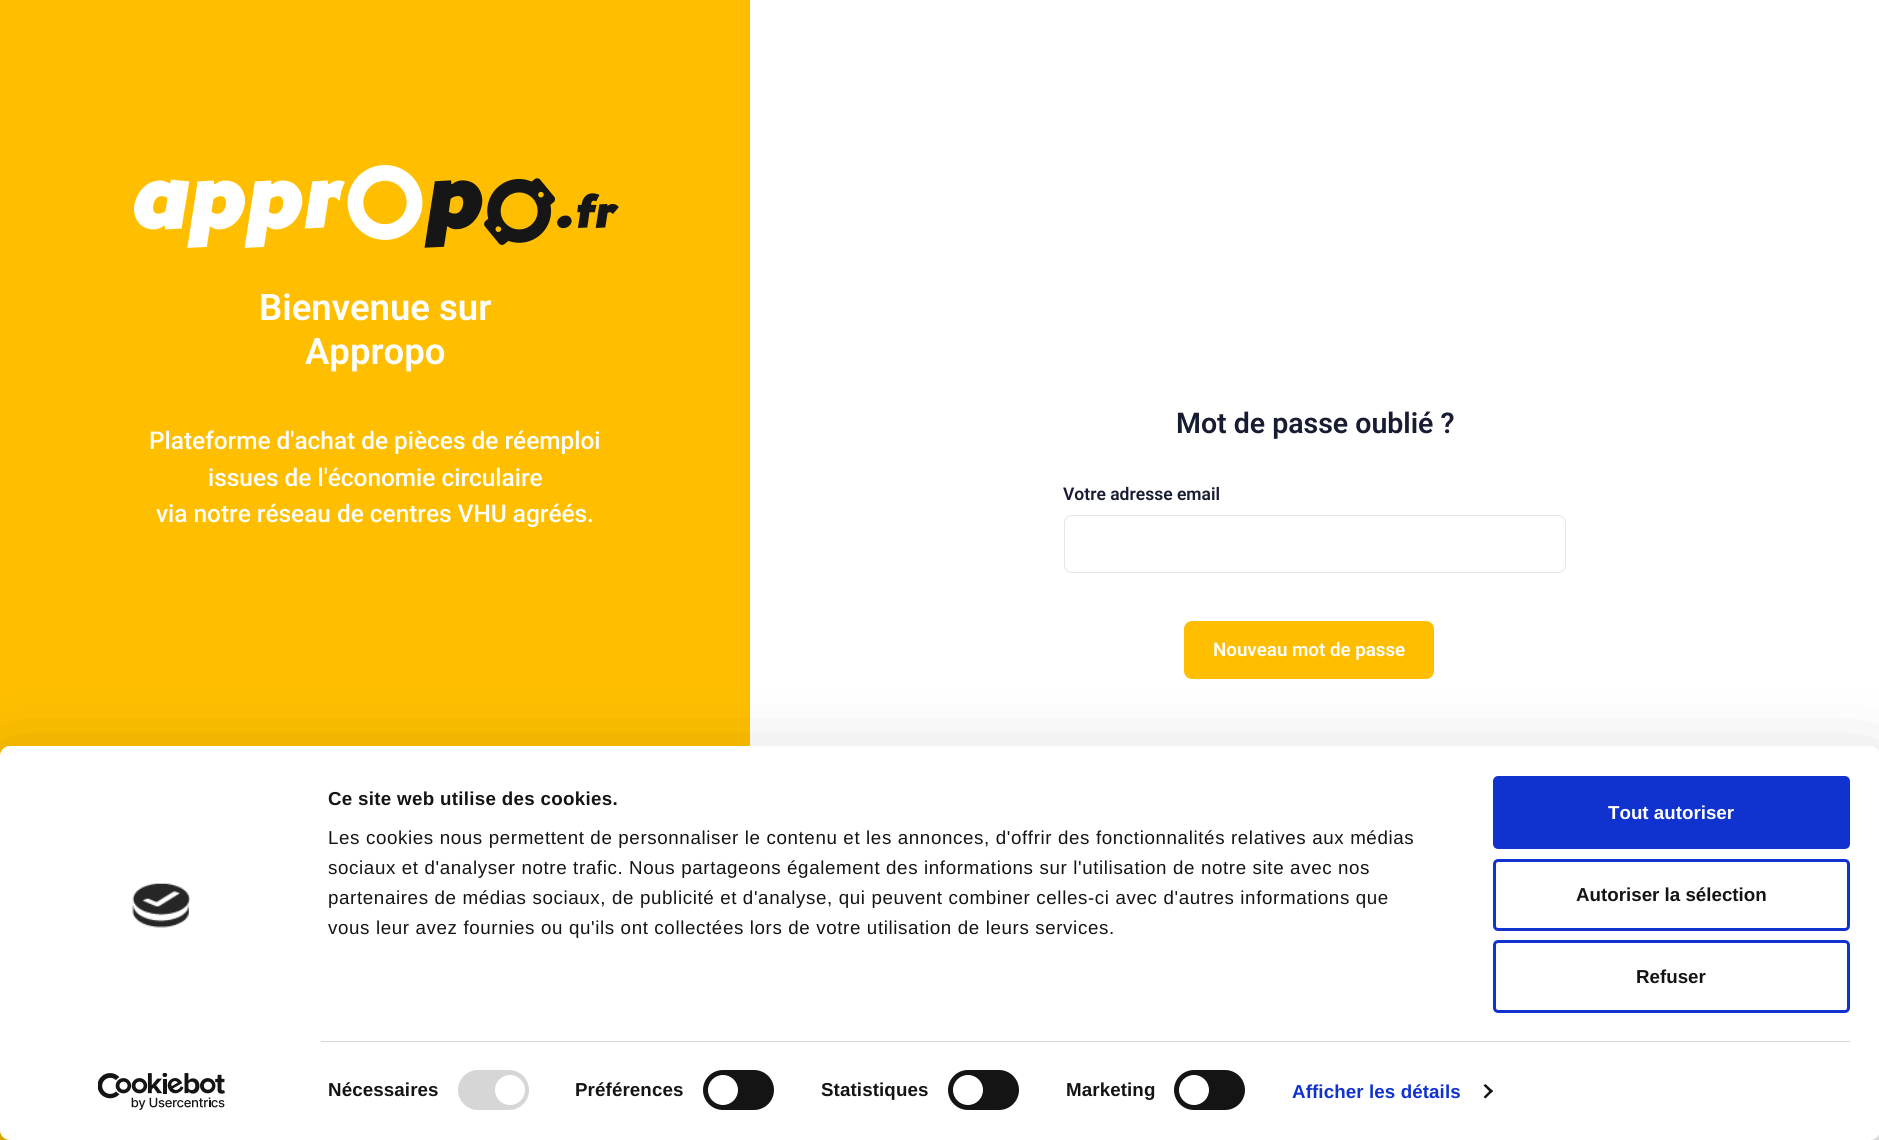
import math
import cairo


def use_color(cr, r, g, b):
  cr.set_source_rgb(r / 255, g / 255, b / 255)

def text(cr, x, y, s, family, size, color, bold=False, italic=False):
  cr.select_font_face(family, cairo.FONT_SLANT_ITALIC if italic else cairo.FONT_SLANT_NORMAL, cairo.FONT_WEIGHT_BOLD if bold else cairo.FONT_WEIGHT_NORMAL)
  cr.set_font_size(size)
  use_color(cr, *color)
  cr.move_to(x, y)
  cr.show_text(s)

def spaced_text(cr, x, y, s, letter, word):
  cr.move_to(x, y)
  for ch in s:
    cr.show_text(ch)
    cr.rel_move_to(letter + word * (ch == ' '), 0)

def box(cr, x, y, w, h, *color):
  use_color(cr, *color)
  cr.rectangle(x, y, w, h)
  cr.fill()

def round_rect(cr, x, y, w, h, r):
  cr.new_sub_path()
  for i, (u, v) in enumerate([(x + w - r, y + h - r), (x + r, y + h - r), (x + r, y + r), (x + w - r, y + r)]):
    cr.arc(u, v, r, i * math.pi / 2, (i + 1) * math.pi / 2)
  cr.close_path()

def shadow(cr, x, y, w, h, r, blur, alpha):
  cr.push_group_with_content(cairo.CONTENT_ALPHA)
  cr.set_operator(cairo.OPERATOR_SOURCE)
  for i in range(15, -16, -2):
    e = blur * i / 6
    if min(w, h) + 2 * e > 0:
      cr.set_source_rgba(0, 0, 0, alpha * math.erfc((i - 1) / 8.5) / 2)
      round_rect(cr, x - e, y - e, w + 2 * e, h + 2 * e, max(0, min(r + e + blur * .6, min(w, h) / 2 + e)))
      cr.fill()
  cr.mask(cr.pop_group())

def picture(cr, path, x, y, w, h):
  cr.save()
  cr.set_source_surface(cairo.ImageSurface.create_from_png(path), x, y)
  cr.rectangle(x, y, w, h)
  cr.fill()
  cr.restore()

def draw(cr):
  use_color(cr, 255, 255, 255)
  cr.paint()
  box(cr, 0, 0, 750, 1140, 255, 191, 0)
  picture(cr, "img_01.png", 134, 165, 485, 83)
  round_rect(cr, 1064.5, 515.5, 501, 57, 7.5)
  use_color(cr, 228, 230, 239)
  cr.set_line_width(1)
  cr.stroke()
  use_color(cr, 255, 191, 0)
  round_rect(cr, 1184, 621, 250, 58, 8)
  cr.fill()
  use_color(cr, 0, 0, 0)
  shadow(cr, 0, 784, 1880, 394, 10, 44, 0.3)
  use_color(cr, 255, 255, 255)
  round_rect(cr, 0, 746, 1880, 394, 10)
  cr.fill()
  picture(cr, "img_02.png", 132, 883, 58, 45)
  picture(cr, "img_03.png", 98, 1073, 127, 37)
  box(cr, 321, 1041, 1529, 1, 214, 214, 214)
  round_rect(cr, 458, 1070, 71, 40, 20)
  cr.fill()
  use_color(cr, 255, 255, 255)
  cr.arc(510, 1090, 15, 0, 2 * math.pi)
  cr.fill()
  use_color(cr, 20, 20, 20)
  round_rect(cr, 703, 1070, 71, 40, 20)
  cr.fill()
  use_color(cr, 255, 255, 255)
  cr.arc(723, 1090, 15, 0, 2 * math.pi)
  cr.fill()
  use_color(cr, 20, 20, 20)
  round_rect(cr, 948, 1070, 71, 40, 20)
  cr.fill()
  use_color(cr, 255, 255, 255)
  cr.arc(968, 1090, 15, 0, 2 * math.pi)
  cr.fill()
  use_color(cr, 20, 20, 20)
  round_rect(cr, 1174, 1070, 71, 40, 20)
  cr.fill()
  use_color(cr, 255, 255, 255)
  cr.arc(1194, 1090, 15, 0, 2 * math.pi)
  cr.fill()
  use_color(cr, 20, 20, 20)
  cr.new_path()
  cr.move_to(1485.5, 1084)
  cr.line_to(1493, 1091)
  cr.line_to(1491, 1093)
  cr.line_to(1483.5, 1085.5)
  cr.close_path()
  cr.fill()
  cr.new_path()
  cr.move_to(1491, 1089.5)
  cr.line_to(1493, 1091)
  cr.line_to(1485.5, 1098.5)
  cr.line_to(1483.5, 1097)
  cr.close_path()
  cr.fill()
  use_color(cr, 16, 50, 207)
  round_rect(cr, 1494.5, 777.5, 354, 70, 3.5)
  cr.fill_preserve()
  cr.set_line_width(3)
  cr.stroke()
  round_rect(cr, 1494.5, 860.5, 354, 69, 3.5)
  cr.stroke()
  round_rect(cr, 1494.5, 941.5, 354, 70, 3.5)
  cr.stroke()
  text(cr, 259, 320, "Bienvenue sur", "Roboto SemiBold", 36.5, (255, 255, 255))
  text(cr, 305, 364, "Appropo", "Roboto SemiBold", 36.5, (255, 255, 255))
  text(cr, 149, 449, "Plateforme d'achat de pièces de réemploi", "Roboto Medium", 24.4, (255, 255, 255))
  text(cr, 208, 486, "issues de l'économie circulaire", "Roboto Medium", 24.4, (255, 255, 255))
  text(cr, 156, 522, "via notre réseau de centres VHU agréés.", "Roboto Medium", 24.4, (255, 255, 255))
  text(cr, 1176, 433, "Mot de passe oublié ?", "Roboto SemiBold", 28.5, (24, 28, 50))
  text(cr, 1063, 500, "Votre adresse email", "Roboto SemiBold", 17.5, (24, 28, 50))
  text(cr, 1213, 656, "Nouveau mot de passe", "Roboto SemiBold", 18.75, (255, 255, 255))
  cr.select_font_face("Liberation Sans", cairo.FONT_SLANT_NORMAL, cairo.FONT_WEIGHT_BOLD)
  use_color(cr, 20, 20, 20)
  spaced_text(cr, 328, 805, "Ce site web utilise des cookies.", 0.3, 0)
  cr.select_font_face("Liberation Sans")
  spaced_text(cr, 328, 844, "Les cookies nous permettent de personnaliser le contenu et les annonces, d'offrir des fonctionnalités relatives aux médias", 0.62, 0)
  spaced_text(cr, 328, 874, "sociaux et d'analyser notre trafic. Nous partageons également des informations sur l'utilisation de notre site avec nos", 0.62, 0)
  spaced_text(cr, 328, 904, "partenaires de médias sociaux, de publicité et d'analyse, qui peuvent combiner celles-ci avec d'autres informations que", 0.62, 0)
  spaced_text(cr, 328, 934, "vous leur avez fournies ou qu'ils ont collectées lors de votre utilisation de leurs services.", 0.62, 0)
  cr.select_font_face("Liberation Sans", cairo.FONT_SLANT_NORMAL, cairo.FONT_WEIGHT_BOLD)
  spaced_text(cr, 328, 1096, "Nécessaires", 0.1, 0)
  spaced_text(cr, 575, 1096, "Préférences", 0.1, 0)
  spaced_text(cr, 821, 1096, "Statistiques", 0.1, 0)
  spaced_text(cr, 1066, 1096, "Marketing", 0.1, 0)
  use_color(cr, 16, 50, 207)
  spaced_text(cr, 1292, 1098, "Afficher les détails", 0.1, 0)
  text(cr, 1608, 819, "Tout autoriser", "Liberation Sans", 18.75, (255, 255, 255), bold=True)
  text(cr, 1576, 901, "Autoriser la sélection", "Liberation Sans", 18.75, (20, 20, 20), bold=True)
  text(cr, 1636, 983, "Refuser", "Liberation Sans", 18.75, (20, 20, 20), bold=True)


surface = cairo.ImageSurface(cairo.FORMAT_RGB24, 1879, 1140)
cr = cairo.Context(surface)
options = cairo.FontOptions()
options.set_hint_metrics(cairo.HINT_METRICS_OFF)
options.set_hint_style(cairo.HINT_STYLE_NONE)
cr.set_font_options(options)
cr.set_miter_limit(4)
draw(cr)
surface.write_to_png("out.png")
